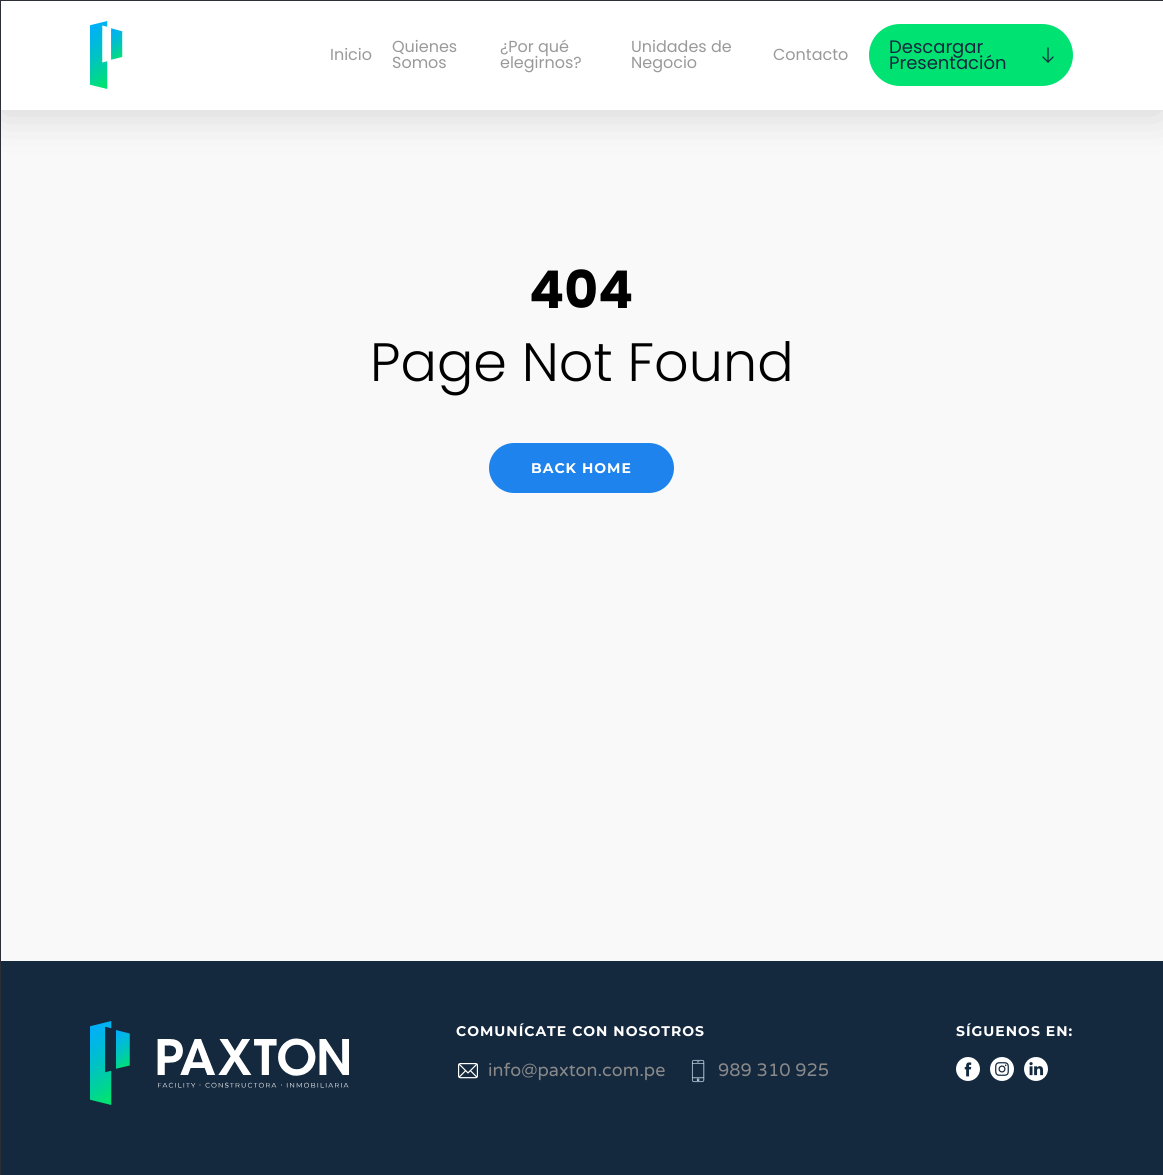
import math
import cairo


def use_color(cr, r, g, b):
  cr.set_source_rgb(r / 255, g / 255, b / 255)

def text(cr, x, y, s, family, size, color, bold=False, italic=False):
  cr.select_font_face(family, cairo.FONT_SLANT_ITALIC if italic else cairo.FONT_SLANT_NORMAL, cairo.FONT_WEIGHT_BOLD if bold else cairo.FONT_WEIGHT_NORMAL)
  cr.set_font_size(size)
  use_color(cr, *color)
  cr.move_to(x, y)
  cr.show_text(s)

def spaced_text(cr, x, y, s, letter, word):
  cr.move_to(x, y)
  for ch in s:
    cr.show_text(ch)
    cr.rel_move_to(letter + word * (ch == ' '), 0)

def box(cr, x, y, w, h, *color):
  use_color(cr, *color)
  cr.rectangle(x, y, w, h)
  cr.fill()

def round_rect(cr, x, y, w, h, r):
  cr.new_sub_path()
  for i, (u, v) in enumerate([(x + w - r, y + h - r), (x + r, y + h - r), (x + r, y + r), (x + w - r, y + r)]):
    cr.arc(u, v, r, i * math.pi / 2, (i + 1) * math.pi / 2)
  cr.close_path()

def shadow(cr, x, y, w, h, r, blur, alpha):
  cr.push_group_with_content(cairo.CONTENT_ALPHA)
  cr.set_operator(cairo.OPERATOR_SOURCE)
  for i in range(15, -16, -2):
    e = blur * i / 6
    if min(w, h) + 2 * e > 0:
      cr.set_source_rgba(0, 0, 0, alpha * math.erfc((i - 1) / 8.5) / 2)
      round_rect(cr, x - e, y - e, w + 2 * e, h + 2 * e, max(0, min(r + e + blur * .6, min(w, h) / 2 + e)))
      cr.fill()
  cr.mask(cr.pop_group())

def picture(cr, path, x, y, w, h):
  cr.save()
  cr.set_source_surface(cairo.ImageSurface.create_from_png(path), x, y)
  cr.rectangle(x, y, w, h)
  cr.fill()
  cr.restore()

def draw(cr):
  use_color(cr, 249, 249, 249)
  cr.paint()
  use_color(cr, 0, 0, 0)
  shadow(cr, 0, 3, 1163, 110, 0, 22.5, 0.15)
  box(cr, 0, 0, 1163, 1, 44, 47, 56)
  box(cr, 0, 0, 1, 1175, 44, 47, 56)
  box(cr, 1, 1, 1162, 109, 255, 255, 255)
  picture(cr, "img_01.png", 90, 21, 33, 68)
  use_color(cr, 0, 226, 114)
  round_rect(cr, 869, 24, 204, 62, 31)
  cr.fill()
  picture(cr, "img_02.png", 1042, 47, 12, 16)
  use_color(cr, 30, 131, 236)
  round_rect(cr, 489, 443, 185, 50, 25)
  cr.fill()
  box(cr, 1, 961, 1162, 214, 20, 40, 62)
  picture(cr, "img_03.png", 90, 1021, 259, 84)
  picture(cr, "img_04.png", 458, 1063, 20, 16)
  picture(cr, "img_05.png", 691, 1059, 14, 24)
  picture(cr, "img_06.png", 956, 1057, 24, 24)
  picture(cr, "img_07.png", 990, 1057, 24, 24)
  picture(cr, "img_08.png", 1024, 1057, 24, 24)
  text(cr, 330, 60, "Inicio", "Poppins", 16, (153, 153, 153))
  text(cr, 392, 52, "Quienes", "Poppins", 16, (153, 153, 153))
  text(cr, 392, 68, "Somos", "Poppins", 16, (153, 153, 153))
  text(cr, 500, 52, "¿Por qué", "Poppins", 16, (153, 153, 153))
  text(cr, 500, 68, "elegirnos?", "Poppins", 16, (153, 153, 153))
  text(cr, 631, 52, "Unidades de", "Poppins", 16, (153, 153, 153))
  text(cr, 631, 68, "Negocio", "Poppins", 16, (153, 153, 153))
  text(cr, 773, 60, "Contacto", "Poppins", 16, (153, 153, 153))
  text(cr, 889, 53, "Descargar", "Poppins", 18, (20, 40, 62))
  text(cr, 889, 69, "Presentación", "Poppins", 18, (20, 40, 62))
  text(cr, 529, 308, "404", "Poppins", 52, (0, 0, 0), bold=True)
  text(cr, 370, 381, "Page Not Found", "Poppins Light", 54, (0, 0, 0))
  cr.select_font_face("Montserrat Thin")
  cr.set_font_size(14)
  use_color(cr, 255, 255, 255)
  spaced_text(cr, 531, 473, "BACK HOME", 1, 0)
  spaced_text(cr, 456, 1036, "COMUNÍCATE CON NOSOTROS", 1, 0)
  text(cr, 488, 1076, "info@paxton.com.pe", "Varela Round", 18, (137, 137, 137))
  text(cr, 718, 1076, "989 310 925", "Varela Round", 18, (137, 137, 137))
  cr.select_font_face("Montserrat Thin")
  cr.set_font_size(14)
  use_color(cr, 255, 255, 255)
  spaced_text(cr, 956, 1036, "SÍGUENOS EN:", 1, 0)


surface = cairo.ImageSurface(cairo.FORMAT_RGB24, 1163, 1175)
cr = cairo.Context(surface)
options = cairo.FontOptions()
options.set_hint_metrics(cairo.HINT_METRICS_OFF)
options.set_hint_style(cairo.HINT_STYLE_NONE)
cr.set_font_options(options)
cr.set_miter_limit(4)
draw(cr)
surface.write_to_png("out.png")
